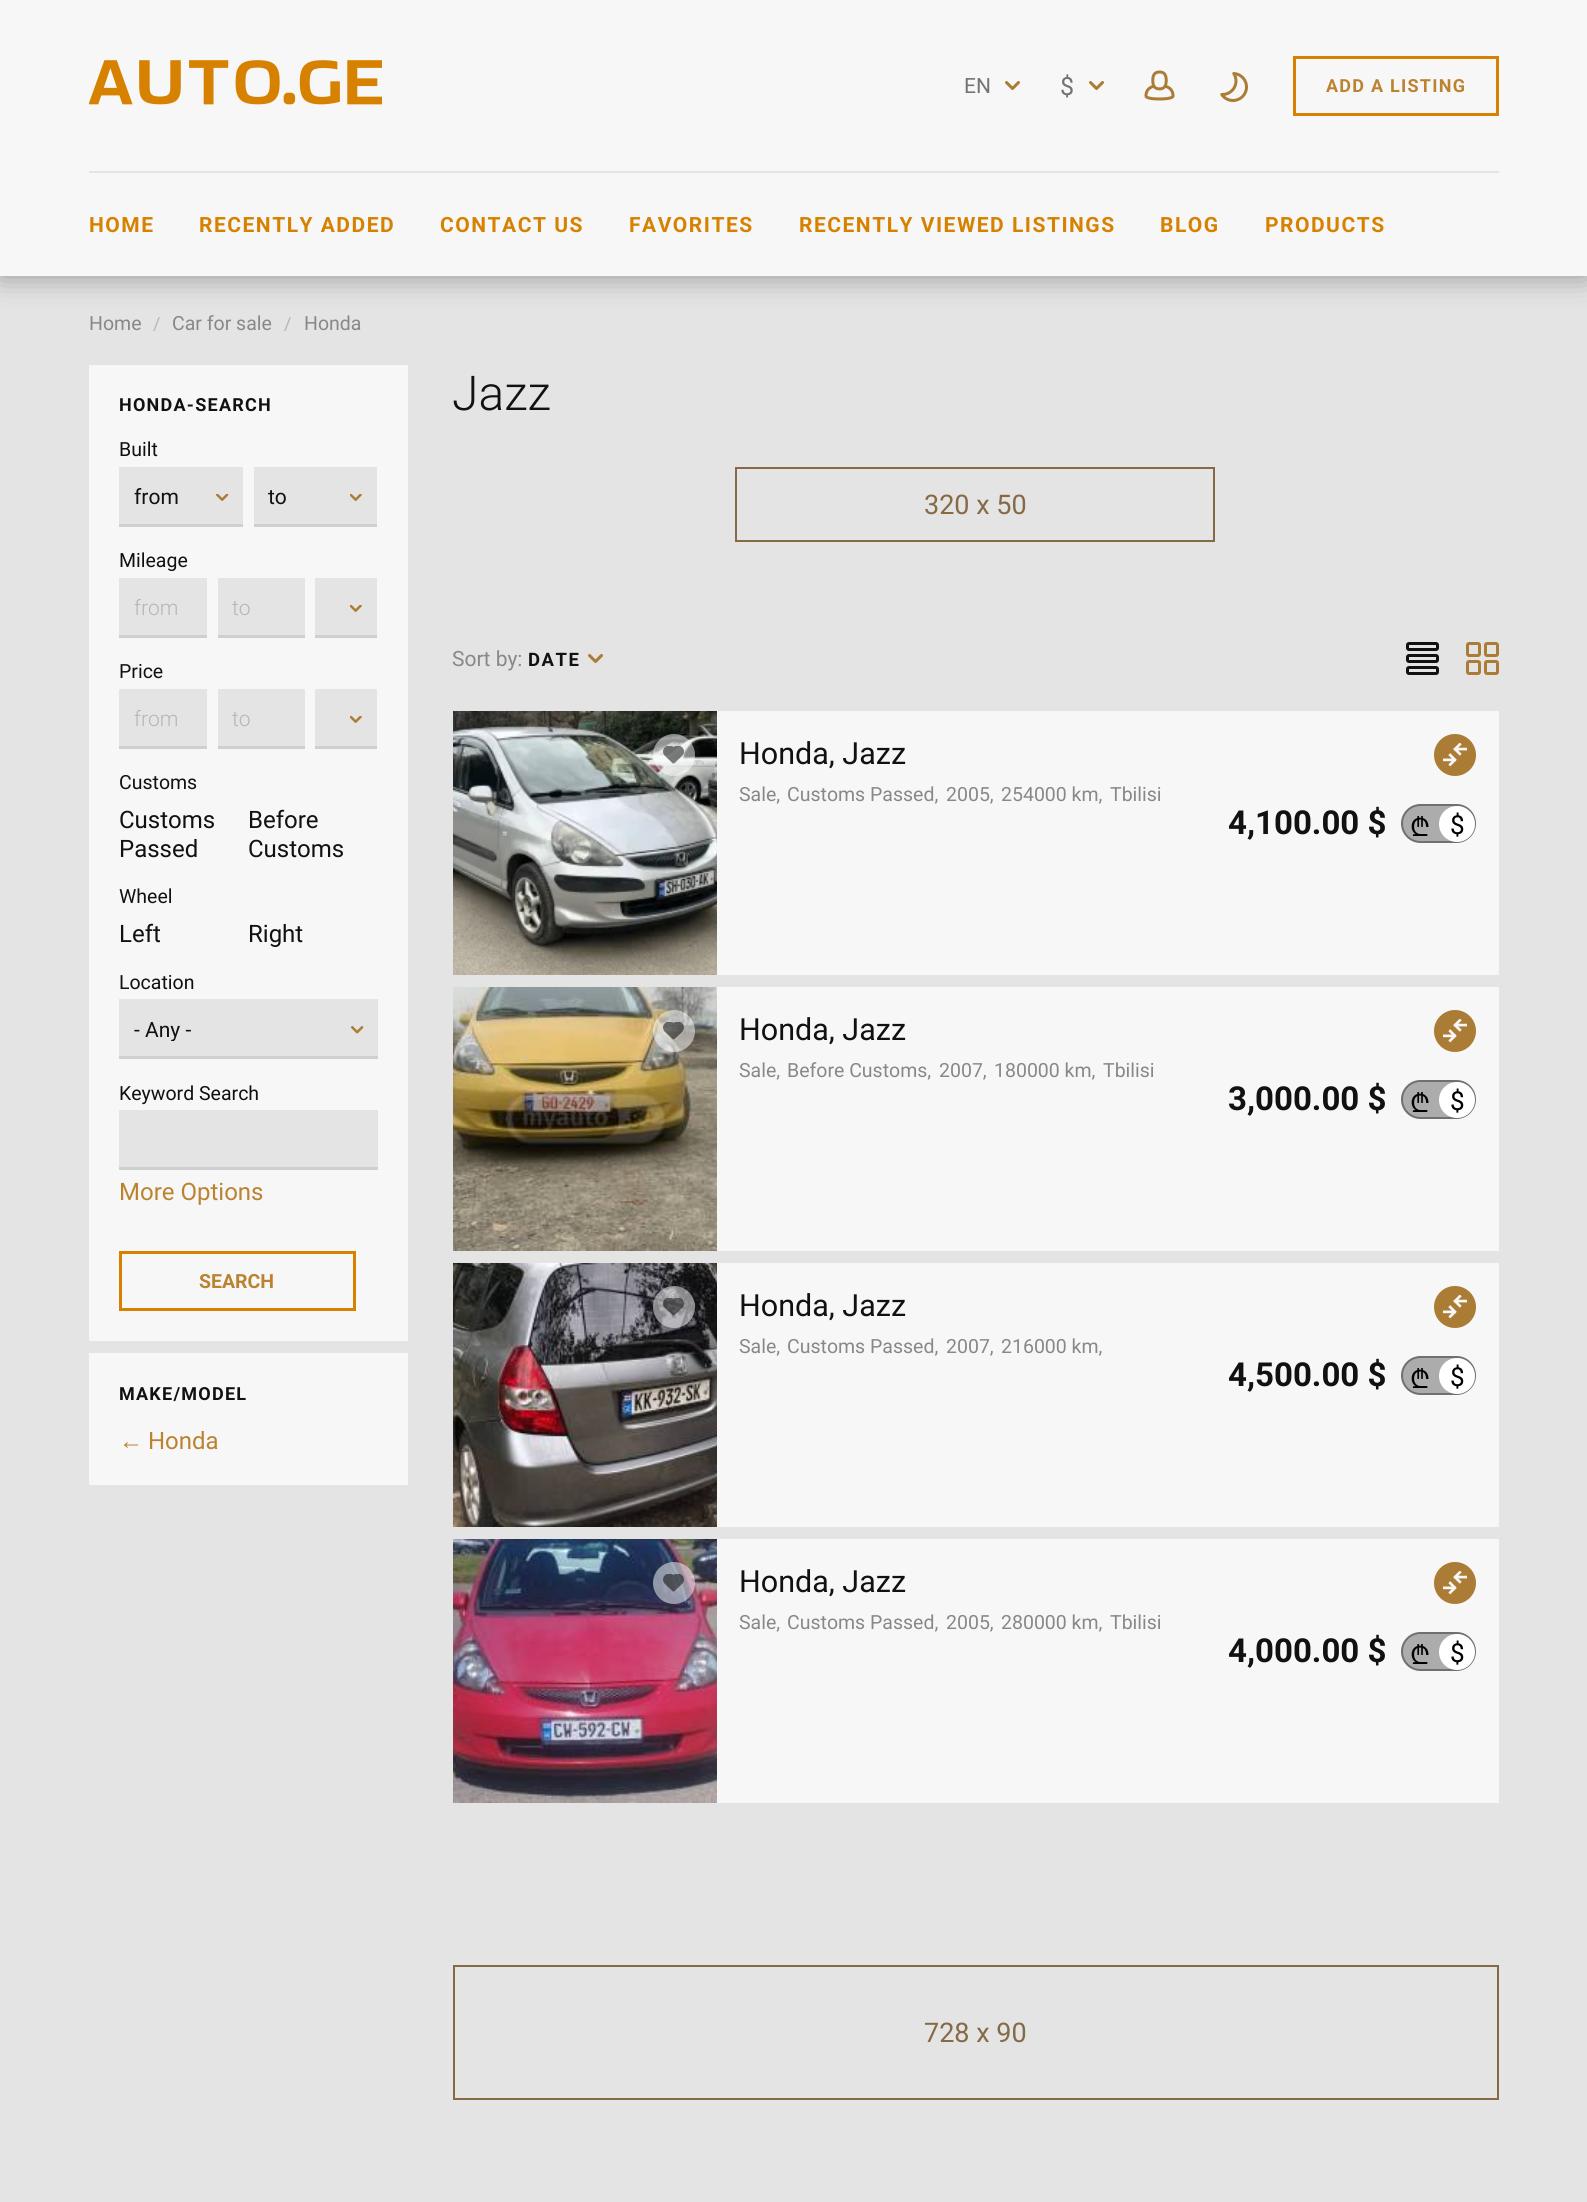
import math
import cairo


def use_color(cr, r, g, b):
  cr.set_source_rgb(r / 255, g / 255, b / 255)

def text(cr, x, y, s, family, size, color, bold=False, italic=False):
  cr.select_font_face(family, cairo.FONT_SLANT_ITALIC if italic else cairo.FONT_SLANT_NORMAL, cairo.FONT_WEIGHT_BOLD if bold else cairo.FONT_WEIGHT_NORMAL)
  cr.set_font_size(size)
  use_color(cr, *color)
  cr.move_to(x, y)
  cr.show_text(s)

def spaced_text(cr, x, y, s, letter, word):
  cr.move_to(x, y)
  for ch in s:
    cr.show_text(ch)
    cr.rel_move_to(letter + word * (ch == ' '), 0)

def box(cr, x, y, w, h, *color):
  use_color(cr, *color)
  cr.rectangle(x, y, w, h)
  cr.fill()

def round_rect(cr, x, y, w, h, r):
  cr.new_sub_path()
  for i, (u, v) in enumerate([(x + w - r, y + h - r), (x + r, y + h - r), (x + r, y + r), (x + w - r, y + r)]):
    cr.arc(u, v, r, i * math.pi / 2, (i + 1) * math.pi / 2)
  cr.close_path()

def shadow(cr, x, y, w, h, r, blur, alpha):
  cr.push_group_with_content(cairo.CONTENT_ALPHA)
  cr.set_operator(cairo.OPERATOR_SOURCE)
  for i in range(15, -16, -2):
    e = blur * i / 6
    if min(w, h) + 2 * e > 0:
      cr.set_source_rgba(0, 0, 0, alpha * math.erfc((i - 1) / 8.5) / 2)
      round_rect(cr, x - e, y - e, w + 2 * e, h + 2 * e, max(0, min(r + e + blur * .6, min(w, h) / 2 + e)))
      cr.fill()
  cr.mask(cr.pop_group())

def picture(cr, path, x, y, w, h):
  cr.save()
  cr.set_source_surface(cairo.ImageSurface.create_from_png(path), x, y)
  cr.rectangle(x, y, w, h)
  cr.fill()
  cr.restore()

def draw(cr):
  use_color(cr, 228, 228, 228)
  cr.paint()
  use_color(cr, 0, 0, 0)
  shadow(cr, 0, 0, 1587, 276, 0, 15, 0.36)
  box(cr, 0, 0, 1587, 276, 247, 247, 247)
  picture(cr, "img_01.png", 89, 60, 293, 45)
  picture(cr, "img_02.png", 1005, 81, 15, 9)
  picture(cr, "img_02.png", 1089, 81, 15, 9)
  picture(cr, "img_03.png", 1144, 70, 31, 31)
  picture(cr, "img_04.png", 1220, 72, 28, 30)
  cr.rectangle(1294.5, 57.5, 203, 57)
  use_color(cr, 215, 129, 0)
  cr.set_line_width(3)
  cr.stroke()
  box(cr, 89, 171, 1410, 2, 228, 228, 228)
  box(cr, 89, 365, 319, 976, 247, 247, 247)
  box(cr, 119, 467, 124, 57, 228, 228, 228)
  picture(cr, "img_05.png", 216, 494, 13, 7)
  box(cr, 119, 524, 124, 3, 207, 207, 207)
  box(cr, 254, 467, 123, 57, 228, 228, 228)
  picture(cr, "img_06.png", 350, 494, 12, 7)
  box(cr, 254, 524, 123, 3, 207, 207, 207)
  box(cr, 119, 578, 88, 57, 228, 228, 228)
  box(cr, 119, 635, 88, 3, 207, 207, 207)
  box(cr, 218, 578, 87, 57, 228, 228, 228)
  box(cr, 218, 635, 87, 3, 207, 207, 207)
  box(cr, 315, 578, 62, 57, 228, 228, 228)
  picture(cr, "img_06.png", 350, 605, 12, 7)
  box(cr, 315, 635, 62, 3, 207, 207, 207)
  box(cr, 119, 689, 88, 57, 228, 228, 228)
  box(cr, 119, 746, 88, 3, 207, 207, 207)
  box(cr, 218, 689, 87, 57, 228, 228, 228)
  box(cr, 218, 746, 87, 3, 207, 207, 207)
  box(cr, 315, 689, 62, 57, 228, 228, 228)
  picture(cr, "img_06.png", 350, 716, 12, 7)
  box(cr, 315, 746, 62, 3, 207, 207, 207)
  box(cr, 119, 999, 259, 57, 228, 228, 228)
  picture(cr, "img_07.png", 351, 1026, 13, 8)
  box(cr, 119, 1056, 259, 3, 207, 207, 207)
  box(cr, 119, 1110, 259, 57, 228, 228, 228)
  box(cr, 119, 1167, 259, 3, 207, 207, 207)
  cr.rectangle(120.5, 1252.5, 234, 57)
  use_color(cr, 215, 129, 0)
  cr.stroke()
  box(cr, 89, 1353, 319, 132, 247, 247, 247)
  cr.rectangle(736, 468, 478, 73)
  use_color(cr, 133, 106, 69)
  cr.set_line_width(2)
  cr.stroke()
  picture(cr, "img_08.png", 588, 654, 15, 9)
  round_rect(cr, 1407.5, 643.5, 30, 6, 1.5)
  use_color(cr, 17, 17, 17)
  cr.set_line_width(3)
  cr.stroke()
  round_rect(cr, 1407.5, 655.5, 30, 6, 1.5)
  cr.stroke()
  round_rect(cr, 1407.5, 667.5, 30, 6, 1.5)
  cr.stroke()
  round_rect(cr, 1467.5, 643.5, 12, 12, 1.5)
  use_color(cr, 171, 124, 53)
  cr.stroke()
  round_rect(cr, 1485.5, 643.5, 12, 12, 1.5)
  cr.stroke()
  round_rect(cr, 1467.5, 661.5, 12, 12, 1.5)
  cr.stroke()
  round_rect(cr, 1485.5, 661.5, 12, 12, 1.5)
  cr.stroke()
  box(cr, 717, 711, 782, 264, 247, 247, 247)
  use_color(cr, 171, 124, 53)
  cr.arc(1455, 755, 21, 0, 2 * math.pi)
  cr.fill()
  picture(cr, "img_09.png", 1443, 743, 24, 24)
  picture(cr, "img_10.png", 453, 711, 264, 264)
  cr.set_source_rgba(1, 1, 1, 0.5)
  cr.arc(674, 755, 21, 0, 2 * math.pi)
  cr.fill()
  picture(cr, "img_11.png", 663, 746, 21, 18)
  use_color(cr, 172, 172, 172)
  round_rect(cr, 1402, 805, 73, 37, 18.5)
  cr.fill_preserve()
  use_color(cr, 112, 112, 112)
  cr.set_line_width(2)
  cr.stroke()
  use_color(cr, 255, 255, 255)
  cr.arc(1457, 824, 18, 0, 2 * math.pi)
  cr.fill()
  box(cr, 717, 987, 782, 264, 247, 247, 247)
  use_color(cr, 171, 124, 53)
  cr.arc(1455, 1031, 21, 0, 2 * math.pi)
  cr.fill()
  picture(cr, "img_09.png", 1443, 1019, 24, 24)
  picture(cr, "img_12.png", 453, 987, 264, 264)
  cr.set_source_rgba(1, 1, 1, 0.5)
  cr.arc(674, 1031, 21, 0, 2 * math.pi)
  cr.fill()
  picture(cr, "img_13.png", 663, 1022, 21, 18)
  use_color(cr, 172, 172, 172)
  round_rect(cr, 1402, 1081, 73, 37, 18.5)
  cr.fill_preserve()
  use_color(cr, 112, 112, 112)
  cr.stroke()
  use_color(cr, 255, 255, 255)
  cr.arc(1457, 1100, 18, 0, 2 * math.pi)
  cr.fill()
  box(cr, 717, 1263, 782, 264, 247, 247, 247)
  use_color(cr, 171, 124, 53)
  cr.arc(1455, 1307, 21, 0, 2 * math.pi)
  cr.fill()
  picture(cr, "img_09.png", 1443, 1295, 24, 24)
  picture(cr, "img_14.png", 453, 1263, 264, 264)
  cr.set_source_rgba(1, 1, 1, 0.5)
  cr.arc(674, 1307, 21, 0, 2 * math.pi)
  cr.fill()
  picture(cr, "img_15.png", 663, 1298, 21, 18)
  use_color(cr, 172, 172, 172)
  round_rect(cr, 1402, 1357, 73, 37, 18.5)
  cr.fill_preserve()
  use_color(cr, 112, 112, 112)
  cr.stroke()
  use_color(cr, 255, 255, 255)
  cr.arc(1457, 1376, 18, 0, 2 * math.pi)
  cr.fill()
  box(cr, 717, 1539, 782, 264, 247, 247, 247)
  use_color(cr, 171, 124, 53)
  cr.arc(1455, 1583, 21, 0, 2 * math.pi)
  cr.fill()
  picture(cr, "img_09.png", 1443, 1571, 24, 24)
  picture(cr, "img_16.png", 453, 1539, 264, 264)
  cr.set_source_rgba(1, 1, 1, 0.5)
  cr.arc(674, 1583, 21, 0, 2 * math.pi)
  cr.fill()
  picture(cr, "img_17.png", 663, 1574, 21, 18)
  use_color(cr, 172, 172, 172)
  round_rect(cr, 1402, 1633, 73, 37, 18.5)
  cr.fill_preserve()
  use_color(cr, 112, 112, 112)
  cr.stroke()
  use_color(cr, 255, 255, 255)
  cr.arc(1457, 1652, 18, 0, 2 * math.pi)
  cr.fill()
  cr.rectangle(454, 1966, 1044, 133)
  use_color(cr, 133, 106, 69)
  cr.stroke()
  text(cr, 964, 93, "EN", "Roboto", 21, (116, 115, 114))
  text(cr, 1060, 95, "$", "Roboto", 25, (116, 115, 114))
  cr.select_font_face("Roboto", cairo.FONT_SLANT_NORMAL, cairo.FONT_WEIGHT_BOLD)
  cr.set_font_size(18)
  use_color(cr, 187, 131, 48)
  spaced_text(cr, 1326, 92, "ADD A LISTING", 1.25, 0)
  cr.set_font_size(21)
  use_color(cr, 215, 129, 0)
  spaced_text(cr, 89, 232, "HOME", 1.5, 0)
  spaced_text(cr, 199, 232, "RECENTLY ADDED", 1.5, 0)
  spaced_text(cr, 440, 232, "CONTACT US", 1.5, 0)
  spaced_text(cr, 629, 232, "FAVORITES", 1.5, 0)
  spaced_text(cr, 799, 232, "RECENTLY VIEWED LISTINGS", 1.5, 0)
  spaced_text(cr, 1160, 232, "BLOG", 1.5, 0)
  spaced_text(cr, 1265, 232, "PRODUCTS", 1.5, 0)
  text(cr, 89, 330, "Home", "Roboto", 19.5, (136, 136, 136))
  text(cr, 153, 330, "/", "Roboto", 18, (181, 181, 181))
  text(cr, 172, 330, "Car for sale", "Roboto", 19.5, (136, 136, 136))
  text(cr, 284, 330, "/", "Roboto", 18, (181, 181, 181))
  text(cr, 304, 330, "Honda", "Roboto", 19.5, (136, 136, 136))
  cr.select_font_face("Roboto", cairo.FONT_SLANT_NORMAL, cairo.FONT_WEIGHT_BOLD)
  cr.set_font_size(18)
  use_color(cr, 17, 17, 17)
  spaced_text(cr, 119, 411, "HONDA-SEARCH", 1.25, 0)
  text(cr, 119, 456, "Built", "Roboto", 19.5, (17, 17, 17))
  text(cr, 134, 504, "from", "Roboto", 21, (17, 17, 17))
  text(cr, 268, 504, "to", "Roboto", 21, (17, 17, 17))
  text(cr, 119, 567, "Mileage", "Roboto", 19.5, (17, 17, 17))
  text(cr, 134, 615, "from", "Roboto Light", 21, (181, 181, 181))
  text(cr, 232, 615, "to", "Roboto Light", 21, (181, 181, 181))
  text(cr, 119, 678, "Price", "Roboto", 19.5, (17, 17, 17))
  text(cr, 134, 726, "from", "Roboto Light", 21, (181, 181, 181))
  text(cr, 232, 726, "to", "Roboto Light", 21, (181, 181, 181))
  text(cr, 119, 789, "Customs", "Roboto", 19.5, (17, 17, 17))
  text(cr, 119, 828, "Customs", "Roboto", 24, (17, 17, 17))
  text(cr, 119, 857, "Passed", "Roboto", 24, (17, 17, 17))
  text(cr, 248, 828, "Before", "Roboto", 24, (17, 17, 17))
  text(cr, 248, 857, "Customs", "Roboto", 24, (17, 17, 17))
  text(cr, 119, 903, "Wheel", "Roboto", 19.5, (17, 17, 17))
  text(cr, 119, 942, "Left", "Roboto", 24, (17, 17, 17))
  text(cr, 248, 942, "Right", "Roboto", 24, (17, 17, 17))
  text(cr, 119, 989, "Location", "Roboto", 19.5, (17, 17, 17))
  cr.save()
  cr.rectangle(134, 1017, 202, 24)
  cr.clip()
  text(cr, 134, 1037, "- Any -", "Roboto", 21, (17, 17, 17))
  cr.restore()
  text(cr, 119, 1100, "Keyword Search", "Roboto", 19.5, (17, 17, 17))
  text(cr, 119, 1200, "More Options", "Roboto", 24, (187, 131, 48))
  text(cr, 199, 1288, "SEARCH", "Roboto", 19.5, (187, 131, 48), bold=True)
  cr.set_font_size(18)
  use_color(cr, 17, 17, 17)
  spaced_text(cr, 119, 1400, "MAKE/MODEL", 1.25, 0)
  text(cr, 119, 1449, "←", "Liberation Sans", 24, (187, 131, 48))
  text(cr, 148, 1449, "Honda", "Roboto", 24, (187, 131, 48))
  text(cr, 452, 410, "Jazz", "Roboto Light", 48, (17, 17, 17))
  text(cr, 924, 514, "320 x 50", "Roboto", 27, (133, 106, 69))
  text(cr, 452, 666, "Sort by:", "Roboto", 21, (136, 136, 136))
  cr.select_font_face("Roboto", cairo.FONT_SLANT_NORMAL, cairo.FONT_WEIGHT_BOLD)
  cr.set_font_size(18.5)
  use_color(cr, 17, 17, 17)
  spaced_text(cr, 528, 666, "DATE", 1.5, 0)
  text(cr, 739, 764, "Honda, Jazz", "Roboto", 30.5, (17, 17, 17))
  text(cr, 739, 801, "Sale,", "Roboto", 19.5, (136, 136, 136))
  text(cr, 787, 801, "Customs Passed,", "Roboto", 19.5, (136, 136, 136))
  text(cr, 946, 801, "2005,", "Roboto", 19.5, (136, 136, 136))
  text(cr, 1001, 801, "254000 km,", "Roboto", 19.5, (136, 136, 136))
  text(cr, 1110, 801, "Tbilisi", "Roboto", 19.5, (136, 136, 136))
  text(cr, 1228, 834, "4,100.00 $", "Roboto", 33, (17, 17, 17), bold=True)
  text(cr, 1410, 836, "₾", "Noto Sans", 26, (0, 0, 0))
  text(cr, 1450, 834, "$", "Roboto", 26, (0, 0, 0))
  text(cr, 739, 1040, "Honda, Jazz", "Roboto", 30.5, (17, 17, 17))
  text(cr, 739, 1077, "Sale,", "Roboto", 19.5, (136, 136, 136))
  text(cr, 787, 1077, "Before Customs,", "Roboto", 19.5, (136, 136, 136))
  text(cr, 939, 1077, "2007,", "Roboto", 19.5, (136, 136, 136))
  text(cr, 994, 1077, "180000 km,", "Roboto", 19.5, (136, 136, 136))
  text(cr, 1103, 1077, "Tbilisi", "Roboto", 19.5, (136, 136, 136))
  text(cr, 1228, 1110, "3,000.00 $", "Roboto", 33, (17, 17, 17), bold=True)
  text(cr, 1410, 1112, "₾", "Noto Sans", 26, (0, 0, 0))
  text(cr, 1450, 1110, "$", "Roboto", 26, (0, 0, 0))
  text(cr, 739, 1316, "Honda, Jazz", "Roboto", 30.5, (17, 17, 17))
  text(cr, 739, 1353, "Sale,", "Roboto", 19.5, (136, 136, 136))
  text(cr, 787, 1353, "Customs Passed,", "Roboto", 19.5, (136, 136, 136))
  text(cr, 946, 1353, "2007,", "Roboto", 19.5, (136, 136, 136))
  text(cr, 1001, 1353, "216000 km,", "Roboto", 19.5, (136, 136, 136))
  text(cr, 1228, 1386, "4,500.00 $", "Roboto", 33, (17, 17, 17), bold=True)
  text(cr, 1410, 1388, "₾", "Noto Sans", 26, (0, 0, 0))
  text(cr, 1450, 1386, "$", "Roboto", 26, (0, 0, 0))
  text(cr, 739, 1592, "Honda, Jazz", "Roboto", 30.5, (17, 17, 17))
  text(cr, 739, 1629, "Sale,", "Roboto", 19.5, (136, 136, 136))
  text(cr, 787, 1629, "Customs Passed,", "Roboto", 19.5, (136, 136, 136))
  text(cr, 946, 1629, "2005,", "Roboto", 19.5, (136, 136, 136))
  text(cr, 1001, 1629, "280000 km,", "Roboto", 19.5, (136, 136, 136))
  text(cr, 1110, 1629, "Tbilisi", "Roboto", 19.5, (136, 136, 136))
  text(cr, 1228, 1662, "4,000.00 $", "Roboto", 33, (17, 17, 17), bold=True)
  text(cr, 1410, 1664, "₾", "Noto Sans", 26, (0, 0, 0))
  text(cr, 1450, 1662, "$", "Roboto", 26, (0, 0, 0))
  text(cr, 924, 2042, "728 x 90", "Roboto", 27, (133, 106, 69))


surface = cairo.ImageSurface(cairo.FORMAT_RGB24, 1587, 2202)
cr = cairo.Context(surface)
options = cairo.FontOptions()
options.set_hint_metrics(cairo.HINT_METRICS_OFF)
options.set_hint_style(cairo.HINT_STYLE_NONE)
cr.set_font_options(options)
cr.set_miter_limit(4)
draw(cr)
surface.write_to_png("out.png")
